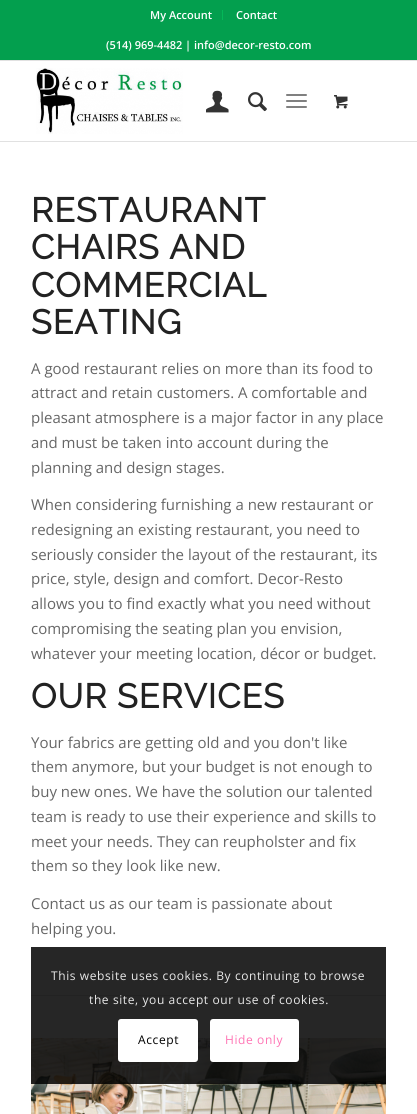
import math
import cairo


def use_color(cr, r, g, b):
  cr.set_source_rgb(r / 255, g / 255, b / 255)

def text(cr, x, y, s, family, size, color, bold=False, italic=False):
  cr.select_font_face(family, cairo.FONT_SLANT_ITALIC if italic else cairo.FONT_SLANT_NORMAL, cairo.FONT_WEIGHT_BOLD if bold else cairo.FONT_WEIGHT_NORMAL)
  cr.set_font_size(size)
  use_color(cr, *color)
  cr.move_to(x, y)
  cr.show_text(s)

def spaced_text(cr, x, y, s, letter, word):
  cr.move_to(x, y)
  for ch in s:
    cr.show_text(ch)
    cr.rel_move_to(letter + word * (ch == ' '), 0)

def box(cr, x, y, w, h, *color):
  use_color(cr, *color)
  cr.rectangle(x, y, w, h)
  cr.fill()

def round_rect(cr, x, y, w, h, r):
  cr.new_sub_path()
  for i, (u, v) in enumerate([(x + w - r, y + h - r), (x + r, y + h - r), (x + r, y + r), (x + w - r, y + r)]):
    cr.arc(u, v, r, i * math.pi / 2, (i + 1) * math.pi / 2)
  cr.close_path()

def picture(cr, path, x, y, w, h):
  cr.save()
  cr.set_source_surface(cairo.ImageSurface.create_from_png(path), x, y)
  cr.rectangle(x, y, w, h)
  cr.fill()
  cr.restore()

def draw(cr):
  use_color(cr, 255, 255, 255)
  cr.paint()
  box(cr, 0, 0, 417, 60, 3, 159, 78)
  box(cr, 0, 60, 417, 1, 225, 225, 225)
  box(cr, 222, 10, 1, 10, 4, 184, 88)
  box(cr, 0, 141, 417, 1, 225, 225, 225)
  picture(cr, "img_01.png", 36, 68, 147, 66)
  picture(cr, "img_02.png", 206, 90, 23, 23)
  picture(cr, "img_03.png", 248, 92, 19, 20)
  use_color(cr, 128, 128, 128)
  round_rect(cr, 286, 100, 21, 2, 1)
  cr.fill()
  round_rect(cr, 286, 94, 21, 2, 1)
  cr.fill()
  round_rect(cr, 286, 106, 21, 2, 1)
  cr.fill()
  picture(cr, "img_04.png", 334, 95, 14, 14)
  box(cr, 31, 995, 355, 1, 225, 225, 225)
  use_color(cr, 252, 252, 252)
  round_rect(cr, 31, 1038, 355, 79, 3)
  cr.fill()
  picture(cr, "img_05.png", 31, 1038, 355, 76)
  cr.set_source_rgba(0, 0, 0, 0.85)
  cr.rectangle(31, 947, 355, 137)
  cr.fill()
  use_color(cr, 255, 255, 255)
  round_rect(cr, 118, 1019, 80, 43, 3)
  cr.fill()
  round_rect(cr, 211, 1020, 87, 41, 2)
  cr.fill_preserve()
  cr.stroke()
  text(cr, 150, 19, "My Account", "Open Sans SemiBold", 11, (255, 255, 255))
  text(cr, 236, 19, "Contact", "Open Sans SemiBold", 11, (255, 255, 255))
  text(cr, 106, 49, "(514) 969-4482 | info@decor-resto.com", "Open Sans SemiBold", 11, (255, 255, 255))
  cr.select_font_face("Raleway", cairo.FONT_SLANT_NORMAL, cairo.FONT_WEIGHT_BOLD)
  cr.set_font_size(34)
  use_color(cr, 34, 34, 34)
  spaced_text(cr, 31, 222, "RESTAURANT", 1, 0)
  spaced_text(cr, 31, 259, "CHAIRS AND", 1, 0)
  spaced_text(cr, 31, 297, "COMMERCIAL", 1, 0)
  spaced_text(cr, 31, 334, "SEATING", 1, 0)
  text(cr, 31, 374, "A good restaurant relies on more than its food to", "Open Sans", 15, (102, 102, 102))
  text(cr, 31, 398, "attract and retain customers. A comfortable and", "Open Sans", 15, (102, 102, 102))
  text(cr, 31, 423, "pleasant atmosphere is a major factor in any place", "Open Sans", 15, (102, 102, 102))
  text(cr, 31, 448, "and must be taken into account during the", "Open Sans", 15, (102, 102, 102))
  text(cr, 31, 473, "planning and design stages.", "Open Sans", 15, (102, 102, 102))
  text(cr, 31, 510, "When considering furnishing a new restaurant or", "Open Sans", 15, (102, 102, 102))
  text(cr, 31, 535, "redesigning an existing restaurant, you need to", "Open Sans", 15, (102, 102, 102))
  text(cr, 31, 560, "seriously consider the layout of the restaurant, its", "Open Sans", 15, (102, 102, 102))
  text(cr, 31, 584, "price, style, design and comfort. Decor-Resto", "Open Sans", 15, (102, 102, 102))
  text(cr, 31, 609, "allows you to find exactly what you need without", "Open Sans", 15, (102, 102, 102))
  text(cr, 31, 634, "compromising the seating plan you envision,", "Open Sans", 15, (102, 102, 102))
  text(cr, 31, 659, "whatever your meeting location, décor or budget.", "Open Sans", 15, (102, 102, 102))
  cr.select_font_face("Raleway", cairo.FONT_SLANT_NORMAL, cairo.FONT_WEIGHT_BOLD)
  cr.set_font_size(34)
  use_color(cr, 34, 34, 34)
  spaced_text(cr, 31, 708, "OUR SERVICES", 1, 0)
  text(cr, 31, 748, "Your fabrics are getting old and you don't like", "Open Sans", 15, (102, 102, 102))
  text(cr, 31, 772, "them anymore, but your budget is not enough to", "Open Sans", 15, (102, 102, 102))
  text(cr, 31, 797, "buy new ones. We have the solution our talented", "Open Sans", 15, (102, 102, 102))
  text(cr, 31, 822, "team is ready to use their experience and skills to", "Open Sans", 15, (102, 102, 102))
  text(cr, 31, 847, "meet your needs. They can reupholster and fix", "Open Sans", 15, (102, 102, 102))
  text(cr, 31, 871, "them so they look like new.", "Open Sans", 15, (102, 102, 102))
  text(cr, 31, 909, "Contact us as our team is passionate about", "Open Sans", 15, (102, 102, 102))
  text(cr, 31, 934, "helping you.", "Open Sans", 15, (102, 102, 102))
  cr.set_font_size(12)
  use_color(cr, 233, 233, 233)
  spaced_text(cr, 51, 980, "This website uses cookies. By continuing to browse", 0.6, 0)
  spaced_text(cr, 89, 1004, "the site, you accept our use of cookies.", 0.6, 0)
  use_color(cr, 0, 0, 0)
  spaced_text(cr, 138, 1044, "Accept", 0.6, 0)
  use_color(cr, 255, 117, 181)
  spaced_text(cr, 225, 1044, "Hide only", 0.6, 0)


surface = cairo.ImageSurface(cairo.FORMAT_RGB24, 417, 1114)
cr = cairo.Context(surface)
options = cairo.FontOptions()
options.set_hint_metrics(cairo.HINT_METRICS_OFF)
options.set_hint_style(cairo.HINT_STYLE_NONE)
cr.set_font_options(options)
cr.set_miter_limit(4)
draw(cr)
surface.write_to_png("out.png")
